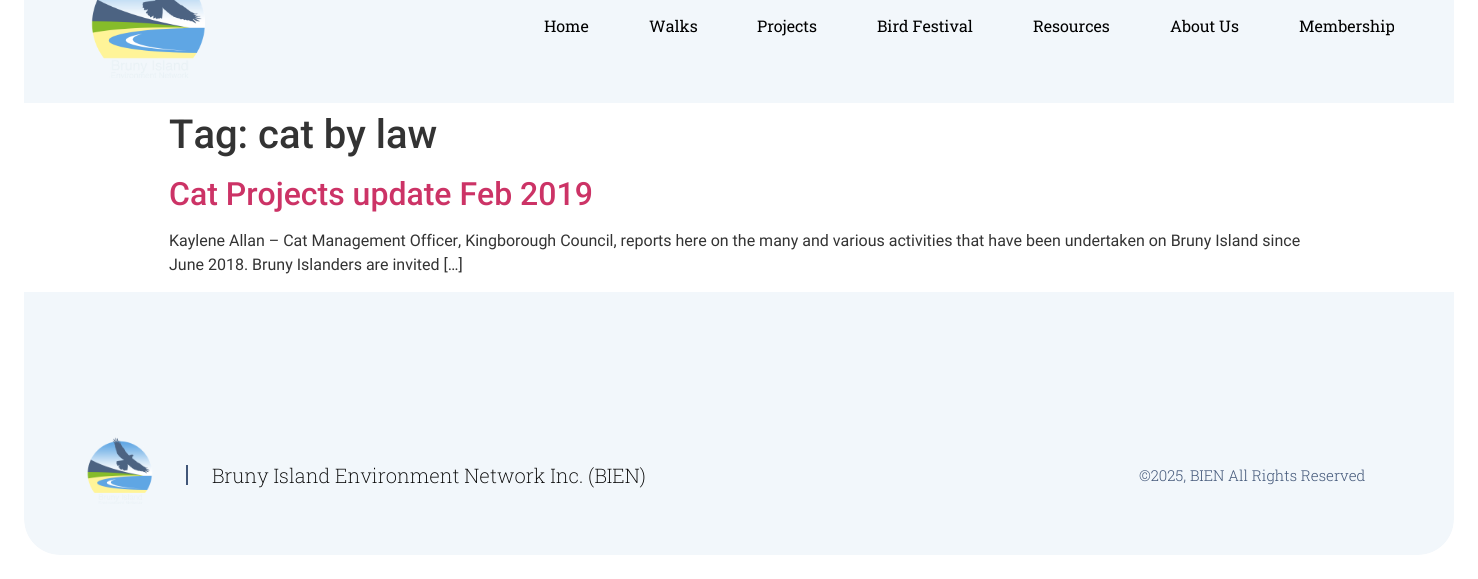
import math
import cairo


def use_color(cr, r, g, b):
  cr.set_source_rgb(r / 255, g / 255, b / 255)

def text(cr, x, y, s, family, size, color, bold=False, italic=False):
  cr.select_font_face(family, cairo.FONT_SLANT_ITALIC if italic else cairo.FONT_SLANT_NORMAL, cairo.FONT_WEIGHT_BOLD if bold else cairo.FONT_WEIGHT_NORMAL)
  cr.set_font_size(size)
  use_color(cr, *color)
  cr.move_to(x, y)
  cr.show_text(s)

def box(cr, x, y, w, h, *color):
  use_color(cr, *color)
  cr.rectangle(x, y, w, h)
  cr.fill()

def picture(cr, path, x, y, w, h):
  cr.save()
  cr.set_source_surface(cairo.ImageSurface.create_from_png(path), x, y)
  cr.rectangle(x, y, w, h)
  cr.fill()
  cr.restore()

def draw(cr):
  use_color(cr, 255, 255, 255)
  cr.paint()
  box(cr, 24, 0, 1430, 103, 242, 247, 251)
  picture(cr, "img_01.png", 91, 0, 114, 78)
  cr.new_path()
  cr.move_to(24, 292)
  cr.line_to(1454, 292)
  cr.line_to(1454, 519)
  cr.curve_to(1454, 539, 1438, 555, 1418, 555)
  cr.line_to(60, 555)
  cr.curve_to(40, 555, 24, 539, 24, 519)
  cr.close_path()
  cr.fill()
  use_color(cr, 255, 255, 255)
  cr.set_fill_rule(cairo.FILL_RULE_EVEN_ODD)
  cr.new_path()
  cr.move_to(0, 292)
  cr.line_to(1478, 292)
  cr.line_to(1478, 519)
  cr.curve_to(1478, 552, 1451, 579, 1418, 579)
  cr.line_to(60, 579)
  cr.curve_to(27, 579, 0, 552, 0, 519)
  cr.close_path()
  cr.move_to(24, 292)
  cr.line_to(1454, 292)
  cr.line_to(1454, 519)
  cr.curve_to(1454, 539, 1438, 555, 1418, 555)
  cr.line_to(60, 555)
  cr.curve_to(40, 555, 24, 539, 24, 519)
  cr.close_path()
  cr.fill()
  picture(cr, "img_02.png", 87, 437, 66, 67)
  box(cr, 186, 465, 2, 20, 65, 86, 120)
  text(cr, 544, 32, "Home", "Roboto Slab", 16, (0, 0, 0))
  text(cr, 649, 32, "Walks", "Roboto Slab", 16, (0, 0, 0))
  text(cr, 757, 32, "Projects", "Roboto Slab", 16, (0, 0, 0))
  text(cr, 877, 32, "Bird Festival", "Roboto Slab", 16, (0, 0, 0))
  text(cr, 1033, 32, "Resources", "Roboto Slab", 16, (0, 0, 0))
  text(cr, 1170, 32, "About Us", "Roboto Slab", 16, (0, 0, 0))
  text(cr, 1299, 32, "Membership", "Roboto Slab", 16, (0, 0, 0))
  text(cr, 169, 148, "Tag: cat by law", "Roboto Medium", 40, (51, 51, 51))
  text(cr, 169, 205, "Cat Projects update Feb 2019", "Roboto Medium", 32, (204, 51, 102))
  text(cr, 169, 246, "Kaylene Allan – Cat Management Officer, Kingborough Council, reports here on the many and various activities that have been undertaken on Bruny Island since", "Roboto", 16, (51, 51, 51))
  text(cr, 169, 270, "June 2018. Bruny Islanders are invited […]", "Roboto", 16, (51, 51, 51))
  text(cr, 212, 483, "Bruny Island Environment Network Inc. (BIEN)", "Roboto Slab ExtraLight", 20, (0, 0, 0))
  text(cr, 1139, 481, "©2025, BIEN All Rights Reserved", "Roboto Slab Light", 15, (65, 86, 120))


surface = cairo.ImageSurface(cairo.FORMAT_RGB24, 1478, 579)
cr = cairo.Context(surface)
options = cairo.FontOptions()
options.set_hint_metrics(cairo.HINT_METRICS_OFF)
options.set_hint_style(cairo.HINT_STYLE_NONE)
cr.set_font_options(options)
cr.set_miter_limit(4)
draw(cr)
surface.write_to_png("out.png")
